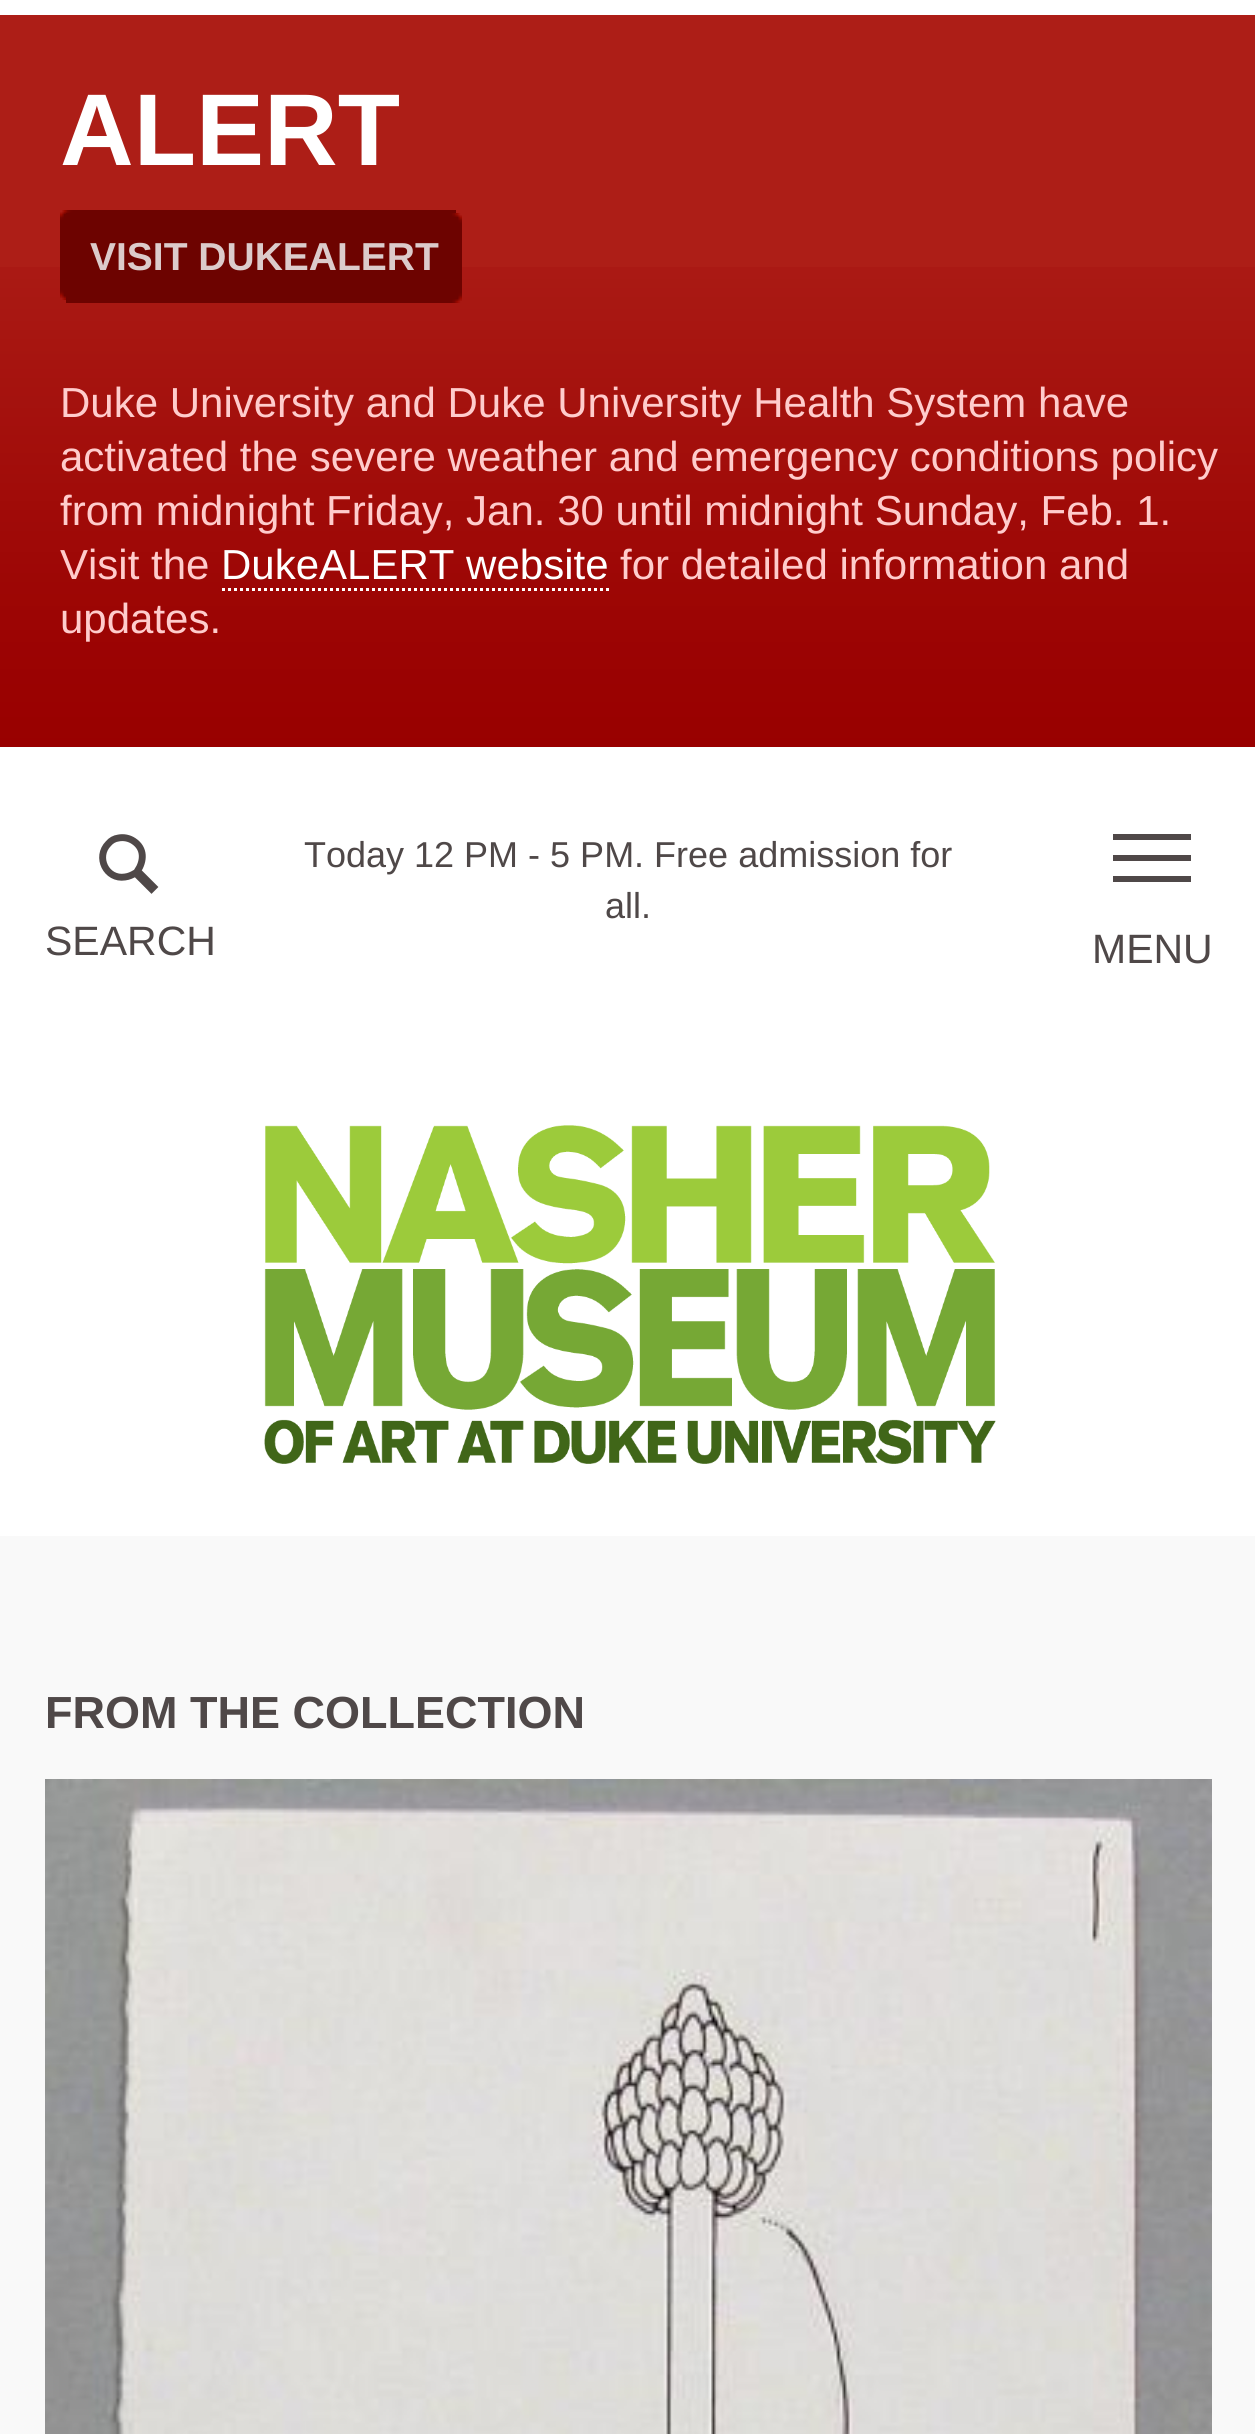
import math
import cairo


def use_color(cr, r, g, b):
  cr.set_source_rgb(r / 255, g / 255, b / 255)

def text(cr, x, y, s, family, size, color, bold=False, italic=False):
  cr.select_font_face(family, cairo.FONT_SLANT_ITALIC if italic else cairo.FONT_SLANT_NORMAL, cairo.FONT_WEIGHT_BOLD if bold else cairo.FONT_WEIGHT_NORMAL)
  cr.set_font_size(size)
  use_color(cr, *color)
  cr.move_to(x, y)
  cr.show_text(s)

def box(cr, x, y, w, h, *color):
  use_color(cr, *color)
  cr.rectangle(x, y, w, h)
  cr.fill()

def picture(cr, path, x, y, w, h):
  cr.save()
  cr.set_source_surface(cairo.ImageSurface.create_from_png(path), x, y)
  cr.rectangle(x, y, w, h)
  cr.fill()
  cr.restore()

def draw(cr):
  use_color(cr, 255, 255, 255)
  cr.paint()
  box(cr, 0, 15, 1255, 252, 173, 30, 23)
  picture(cr, "img_01.png", 0, 267, 1255, 480)
  picture(cr, "img_02.png", 60, 210, 396, 90)
  picture(cr, "img_03.png", 66, 213, 396, 90)
  cr.new_path()
  cr.move_to(222, 589.5)
  cr.line_to(609, 589.5)
  use_color(cr, 255, 255, 255)
  cr.set_line_width(3)
  cr.set_dash([3, 3])
  cr.stroke()
  cr.new_path()
  cr.move_to(151.5, 889)
  cr.line_to(153.5, 887)
  cr.line_to(137.5, 871)
  cr.curve_to(144, 861, 145, 848.5, 133.5, 841)
  cr.curve_to(129, 838, 123.5, 837, 118.5, 838)
  cr.curve_to(114.5, 838.5, 111, 840.5, 108.5, 843.5)
  cr.curve_to(95, 857, 106.5, 880, 125, 877)
  cr.curve_to(129, 876.5, 132, 875, 135.5, 873)
  cr.close_path()
  use_color(cr, 79, 72, 72)
  cr.set_line_width(6.9)
  cr.set_dash([])
  cr.stroke()
  box(cr, 1113, 834, 78, 6, 79, 72, 72)
  box(cr, 1113, 855, 78, 6, 79, 72, 72)
  box(cr, 1113, 876, 78, 6, 79, 72, 72)
  picture(cr, "img_04.png", 264, 1125, 732, 339)
  box(cr, 0, 1536, 1255, 898, 249, 249, 249)
  picture(cr, "img_05.png", 45, 1779, 1167, 655)
  text(cr, 60, 165, "ALERT", "Liberation Sans", 102, (255, 255, 255), bold=True)
  text(cr, 90, 270, "VISIT DUKEALERT", "Liberation Sans", 39, (220, 203, 203), bold=True)
  text(cr, 60, 417, "Duke University and Duke University Health System have", "Liberation Sans", 42, (255, 204, 204))
  text(cr, 60, 471, "activated the severe weather and emergency conditions policy", "Liberation Sans", 42, (255, 204, 204))
  text(cr, 60, 525, "from midnight Friday, Jan. 30 until midnight Sunday, Feb. 1.", "Liberation Sans", 42, (255, 204, 204))
  text(cr, 60, 579, "Visit the", "Liberation Sans", 42, (255, 204, 204))
  text(cr, 221, 579, "DukeALERT website", "Liberation Sans", 42, (255, 255, 255))
  text(cr, 620, 579, "for detailed information and", "Liberation Sans", 42, (255, 204, 204))
  text(cr, 60, 633, "updates.", "Liberation Sans", 42, (255, 204, 204))
  text(cr, 304, 867, "Today 12 PM - 5 PM. Free admission for", "Liberation Sans", 36, (79, 72, 72))
  text(cr, 605, 918, "all.", "Liberation Sans", 36, (79, 72, 72))
  text(cr, 45, 955, "SEARCH", "Liberation Sans", 41, (79, 72, 72))
  text(cr, 1092, 963, "MENU", "Liberation Sans", 41, (79, 72, 72))
  text(cr, 45, 1728, "FROM THE COLLECTION", "Liberation Sans", 45, (79, 72, 72), bold=True)


surface = cairo.ImageSurface(cairo.FORMAT_RGB24, 1255, 2434)
cr = cairo.Context(surface)
options = cairo.FontOptions()
options.set_hint_metrics(cairo.HINT_METRICS_OFF)
options.set_hint_style(cairo.HINT_STYLE_NONE)
cr.set_font_options(options)
cr.set_miter_limit(4)
draw(cr)
surface.write_to_png("out.png")
